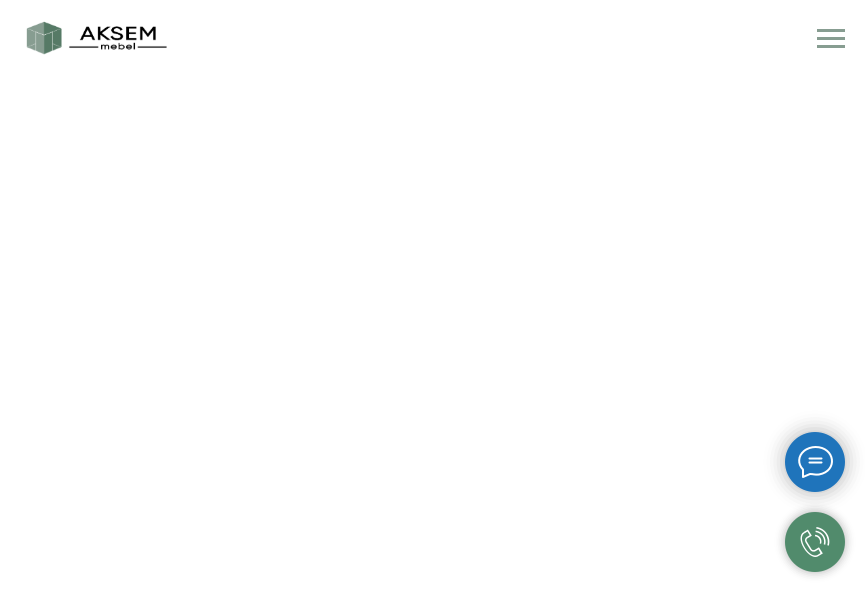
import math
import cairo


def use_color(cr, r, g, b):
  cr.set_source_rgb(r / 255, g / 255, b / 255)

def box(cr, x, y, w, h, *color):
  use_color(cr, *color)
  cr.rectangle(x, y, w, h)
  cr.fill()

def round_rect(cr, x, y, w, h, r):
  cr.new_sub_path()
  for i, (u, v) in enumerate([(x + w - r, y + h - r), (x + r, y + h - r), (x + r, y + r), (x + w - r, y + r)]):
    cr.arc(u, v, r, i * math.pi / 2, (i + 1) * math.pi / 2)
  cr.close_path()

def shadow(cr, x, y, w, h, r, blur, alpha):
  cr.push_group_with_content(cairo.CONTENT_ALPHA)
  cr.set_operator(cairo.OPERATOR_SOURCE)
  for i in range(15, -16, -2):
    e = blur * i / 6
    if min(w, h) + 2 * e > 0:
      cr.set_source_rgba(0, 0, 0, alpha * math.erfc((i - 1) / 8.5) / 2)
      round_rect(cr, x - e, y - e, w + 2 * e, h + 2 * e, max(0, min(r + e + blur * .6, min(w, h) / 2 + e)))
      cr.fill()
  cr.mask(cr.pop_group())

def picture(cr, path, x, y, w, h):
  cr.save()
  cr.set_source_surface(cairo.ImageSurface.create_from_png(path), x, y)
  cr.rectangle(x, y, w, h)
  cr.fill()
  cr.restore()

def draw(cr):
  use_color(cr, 255, 255, 255)
  cr.paint()
  picture(cr, "img_01.png", 26, 21, 141, 34)
  box(cr, 817, 29, 28, 3, 135, 157, 145)
  box(cr, 817, 37, 28, 3, 135, 157, 145)
  box(cr, 817, 45, 28, 3, 135, 157, 145)
  use_color(cr, 0, 0, 0)
  shadow(cr, 785, 512, 60, 60, 30, 5, 0.3)
  use_color(cr, 81, 139, 108)
  cr.arc(815, 542, 30, 0, 2 * math.pi)
  cr.fill()
  use_color(cr, 0, 0, 0)
  shadow(cr, 785, 432, 60, 60, 30, 10, 0.3)
  use_color(cr, 31, 116, 187)
  cr.arc(815, 462, 30, 0, 2 * math.pi)
  cr.fill()
  cr.new_path()
  cr.move_to(809.5, 458.5)
  cr.line_to(821.5, 458.5)
  cr.move_to(809.5, 462.5)
  cr.line_to(821.5, 462.5)
  cr.move_to(803, 469.5)
  cr.curve_to(797.5, 464, 798, 456, 804, 451)
  cr.curve_to(807, 448.5, 811.5, 447, 815.5, 447)
  cr.curve_to(835, 447, 838.5, 471, 819, 474.5)
  cr.curve_to(815, 475, 813.5, 474, 810, 474)
  cr.line_to(803, 477)
  cr.line_to(803, 470)
  cr.close_path()
  use_color(cr, 255, 255, 255)
  cr.set_line_cap(cairo.LINE_CAP_ROUND)
  cr.set_line_join(cairo.LINE_JOIN_ROUND)
  cr.stroke()
  picture(cr, "img_02.png", 800, 527, 30, 30)


surface = cairo.ImageSurface(cairo.FORMAT_RGB24, 865, 592)
cr = cairo.Context(surface)
options = cairo.FontOptions()
options.set_hint_metrics(cairo.HINT_METRICS_OFF)
options.set_hint_style(cairo.HINT_STYLE_NONE)
cr.set_font_options(options)
cr.set_miter_limit(4)
draw(cr)
surface.write_to_png("out.png")
